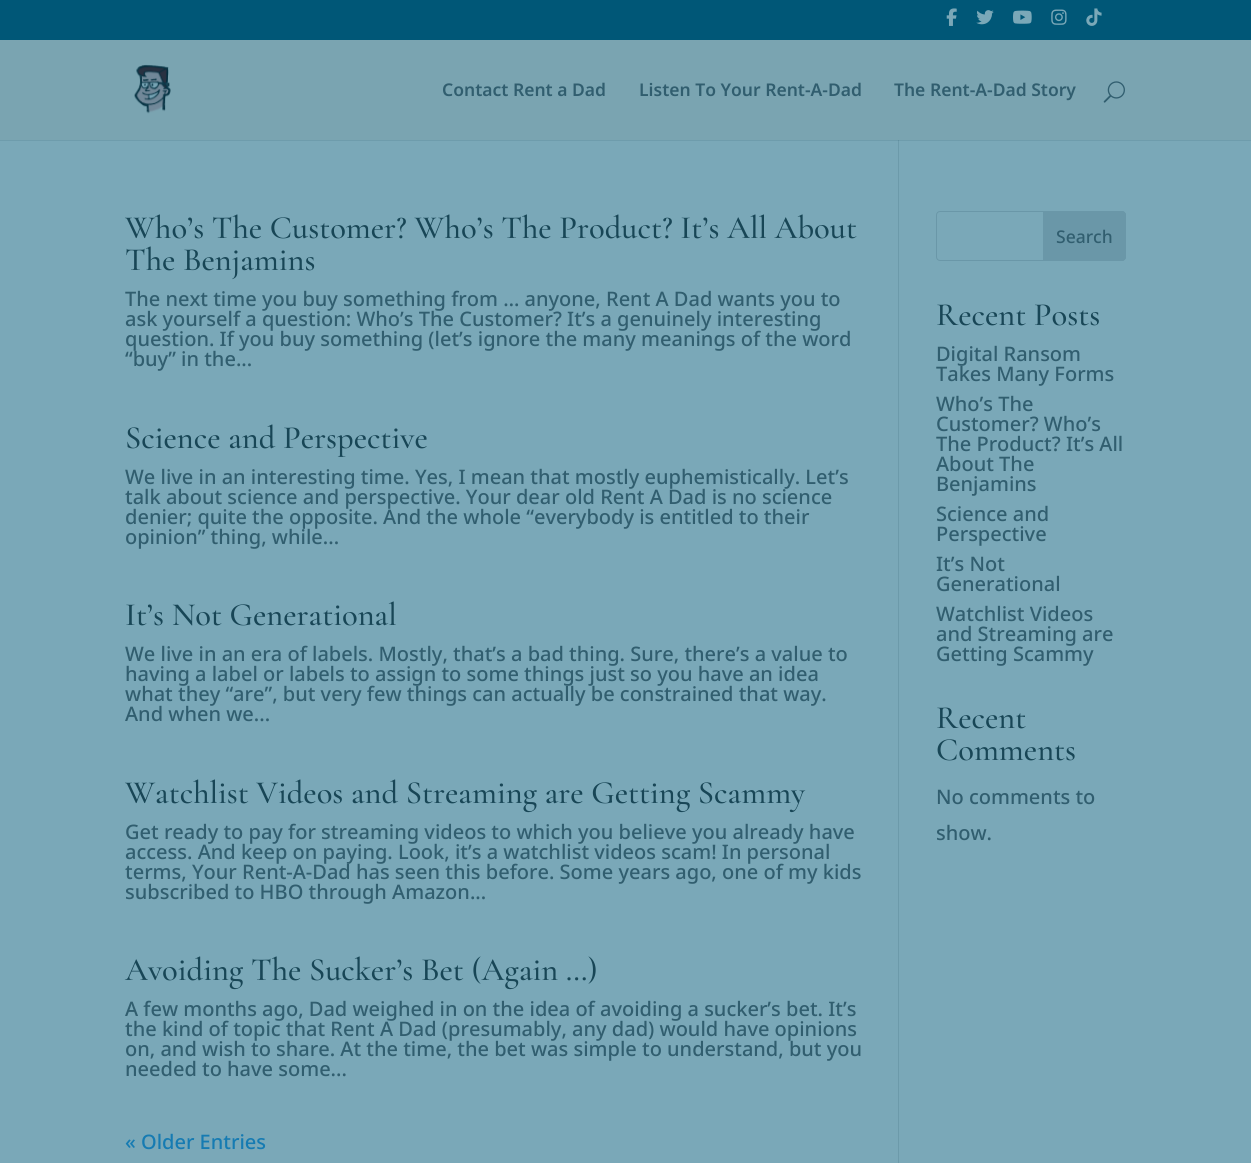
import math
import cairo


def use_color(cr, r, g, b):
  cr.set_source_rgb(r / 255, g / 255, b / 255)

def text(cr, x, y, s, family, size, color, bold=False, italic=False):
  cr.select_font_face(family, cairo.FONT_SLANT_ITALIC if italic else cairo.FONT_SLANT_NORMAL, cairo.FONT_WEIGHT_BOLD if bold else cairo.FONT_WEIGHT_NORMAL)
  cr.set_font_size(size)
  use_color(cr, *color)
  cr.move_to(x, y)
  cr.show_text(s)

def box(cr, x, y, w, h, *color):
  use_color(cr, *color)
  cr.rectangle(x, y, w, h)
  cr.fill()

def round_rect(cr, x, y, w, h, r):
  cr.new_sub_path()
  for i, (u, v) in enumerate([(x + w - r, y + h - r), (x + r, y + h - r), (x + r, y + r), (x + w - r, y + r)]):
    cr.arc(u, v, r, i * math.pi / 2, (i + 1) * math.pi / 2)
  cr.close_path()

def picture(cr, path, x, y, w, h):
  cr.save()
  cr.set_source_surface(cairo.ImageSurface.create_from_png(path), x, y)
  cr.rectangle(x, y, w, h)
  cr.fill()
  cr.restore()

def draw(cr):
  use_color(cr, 122, 168, 184)
  cr.paint()
  box(cr, 0, 0, 1251, 40, 0, 87, 119)
  picture(cr, "img_01.png", 946, 8, 11, 18)
  picture(cr, "img_02.png", 976, 10, 18, 15)
  picture(cr, "img_03.png", 1013, 10, 19, 14)
  picture(cr, "img_04.png", 1051, 9, 16, 16)
  picture(cr, "img_05.png", 1086, 8, 16, 18)
  box(cr, 0, 140, 1251, 1, 110, 156, 172)
  box(cr, 898, 139, 1, 1024, 108, 154, 170)
  box(cr, 0, 40, 1251, 100, 122, 164, 177)
  picture(cr, "img_06.png", 134, 64, 37, 50)
  picture(cr, "img_07.png", 1103, 81, 22, 22)
  box(cr, 898, 140, 1, 1, 97, 143, 159)
  round_rect(cr, 936.5, 211.5, 189, 49, 3.5)
  use_color(cr, 106, 151, 168)
  cr.set_line_width(1)
  cr.stroke()
  cr.new_path()
  cr.move_to(1043, 211)
  cr.line_to(1122, 211)
  cr.curve_to(1124, 211, 1126, 213, 1126, 215)
  cr.line_to(1126, 257)
  cr.curve_to(1126, 259, 1124, 261, 1122, 261)
  cr.line_to(1043, 261)
  cr.close_path()
  cr.fill()
  text(cr, 442, 96, "Contact Rent a Dad", "Noto Sans SemiBold", 17.5, (49, 94, 111))
  text(cr, 639, 96, "Listen To Your Rent-A-Dad", "Noto Sans SemiBold", 17.5, (49, 94, 111))
  text(cr, 894, 96, "The Rent-A-Dad Story", "Noto Sans SemiBold", 17.5, (49, 94, 111))
  text(cr, 125, 238, "Who’s The Customer? Who’s The Product? It’s All About", "Cormorant Garamond Medium", 32.5, (24, 70, 86))
  text(cr, 125, 270, "The Benjamins", "Cormorant Garamond Medium", 32.5, (24, 70, 86))
  text(cr, 125, 306, "The next time you buy something from … anyone, Rent A Dad wants you to", "Noto Sans Medium", 20, (49, 94, 111))
  text(cr, 125, 326, "ask yourself a question: Who’s The Customer? It’s a genuinely interesting", "Noto Sans Medium", 20, (49, 94, 111))
  text(cr, 125, 346, "question. If you buy something (let’s ignore the many meanings of the word", "Noto Sans Medium", 20, (49, 94, 111))
  text(cr, 125, 366, "“buy” in the...", "Noto Sans Medium", 20, (49, 94, 111))
  text(cr, 125, 448, "Science and Perspective", "Cormorant Garamond Medium", 32.5, (24, 70, 86))
  text(cr, 125, 484, "We live in an interesting time. Yes, I mean that mostly euphemistically. Let’s", "Noto Sans Medium", 20, (49, 94, 111))
  text(cr, 125, 504, "talk about science and perspective. Your dear old Rent A Dad is no science", "Noto Sans Medium", 20, (49, 94, 111))
  text(cr, 125, 524, "denier; quite the opposite. And the whole “everybody is entitled to their", "Noto Sans Medium", 20, (49, 94, 111))
  text(cr, 125, 544, "opinion” thing, while...", "Noto Sans Medium", 20, (49, 94, 111))
  text(cr, 125, 625, "It’s Not Generational", "Cormorant Garamond Medium", 32.5, (24, 70, 86))
  text(cr, 125, 661, "We live in an era of labels. Mostly, that’s a bad thing. Sure, there’s a value to", "Noto Sans Medium", 20, (49, 94, 111))
  text(cr, 125, 681, "having a label or labels to assign to some things just so you have an idea", "Noto Sans Medium", 20, (49, 94, 111))
  text(cr, 125, 701, "what they “are”, but very few things can actually be constrained that way.", "Noto Sans Medium", 20, (49, 94, 111))
  text(cr, 125, 721, "And when we...", "Noto Sans Medium", 20, (49, 94, 111))
  text(cr, 125, 803, "Watchlist Videos and Streaming are Getting Scammy", "Cormorant Garamond Medium", 32.5, (24, 70, 86))
  text(cr, 125, 839, "Get ready to pay for streaming videos to which you believe you already have", "Noto Sans Medium", 20, (49, 94, 111))
  text(cr, 125, 859, "access. And keep on paying. Look, it’s a watchlist videos scam! In personal", "Noto Sans Medium", 20, (49, 94, 111))
  text(cr, 125, 879, "terms, Your Rent-A-Dad has seen this before. Some years ago, one of my kids", "Noto Sans Medium", 20, (49, 94, 111))
  text(cr, 125, 899, "subscribed to HBO through Amazon...", "Noto Sans Medium", 20, (49, 94, 111))
  text(cr, 125, 980, "Avoiding The Sucker’s Bet (Again …)", "Cormorant Garamond Medium", 32.5, (24, 70, 86))
  text(cr, 125, 1016, "A few months ago, Dad weighed in on the idea of avoiding a sucker’s bet. It’s", "Noto Sans Medium", 20, (49, 94, 111))
  text(cr, 125, 1036, "the kind of topic that Rent A Dad (presumably, any dad) would have opinions", "Noto Sans Medium", 20, (49, 94, 111))
  text(cr, 125, 1056, "on, and wish to share. At the time, the bet was simple to understand, but you", "Noto Sans Medium", 20, (49, 94, 111))
  text(cr, 125, 1076, "needed to have some...", "Noto Sans Medium", 20, (49, 94, 111))
  text(cr, 125, 1149, "« Older Entries", "Noto Sans Medium", 20, (22, 123, 178))
  text(cr, 1056, 243, "Search", "Noto Sans Medium", 17.5, (49, 94, 111))
  text(cr, 936, 325, "Recent Posts", "Cormorant Garamond Medium", 32.5, (24, 70, 86))
  text(cr, 936, 361, "Digital Ransom", "Noto Sans Medium", 20, (49, 94, 111))
  text(cr, 936, 381, "Takes Many Forms", "Noto Sans Medium", 20, (49, 94, 111))
  text(cr, 936, 411, "Who’s The", "Noto Sans Medium", 20, (49, 94, 111))
  text(cr, 936, 431, "Customer? Who’s", "Noto Sans Medium", 20, (49, 94, 111))
  text(cr, 936, 451, "The Product? It’s All", "Noto Sans Medium", 20, (49, 94, 111))
  text(cr, 936, 471, "About The", "Noto Sans Medium", 20, (49, 94, 111))
  text(cr, 936, 491, "Benjamins", "Noto Sans Medium", 20, (49, 94, 111))
  text(cr, 936, 521, "Science and", "Noto Sans Medium", 20, (49, 94, 111))
  text(cr, 936, 541, "Perspective", "Noto Sans Medium", 20, (49, 94, 111))
  text(cr, 936, 571, "It’s Not", "Noto Sans Medium", 20, (49, 94, 111))
  text(cr, 936, 591, "Generational", "Noto Sans Medium", 20, (49, 94, 111))
  text(cr, 936, 621, "Watchlist Videos", "Noto Sans Medium", 20, (49, 94, 111))
  text(cr, 936, 641, "and Streaming are", "Noto Sans Medium", 20, (49, 94, 111))
  text(cr, 936, 661, "Getting Scammy", "Noto Sans Medium", 20, (49, 94, 111))
  text(cr, 936, 728, "Recent", "Cormorant Garamond Medium", 32.5, (24, 70, 86))
  text(cr, 936, 760, "Comments", "Cormorant Garamond Medium", 32.5, (24, 70, 86))
  text(cr, 936, 804, "No comments to", "Noto Sans Medium", 20, (49, 94, 111))
  text(cr, 936, 840, "show.", "Noto Sans Medium", 20, (49, 94, 111))


surface = cairo.ImageSurface(cairo.FORMAT_RGB24, 1251, 1163)
cr = cairo.Context(surface)
options = cairo.FontOptions()
options.set_hint_metrics(cairo.HINT_METRICS_OFF)
options.set_hint_style(cairo.HINT_STYLE_NONE)
cr.set_font_options(options)
cr.set_miter_limit(4)
draw(cr)
surface.write_to_png("out.png")
